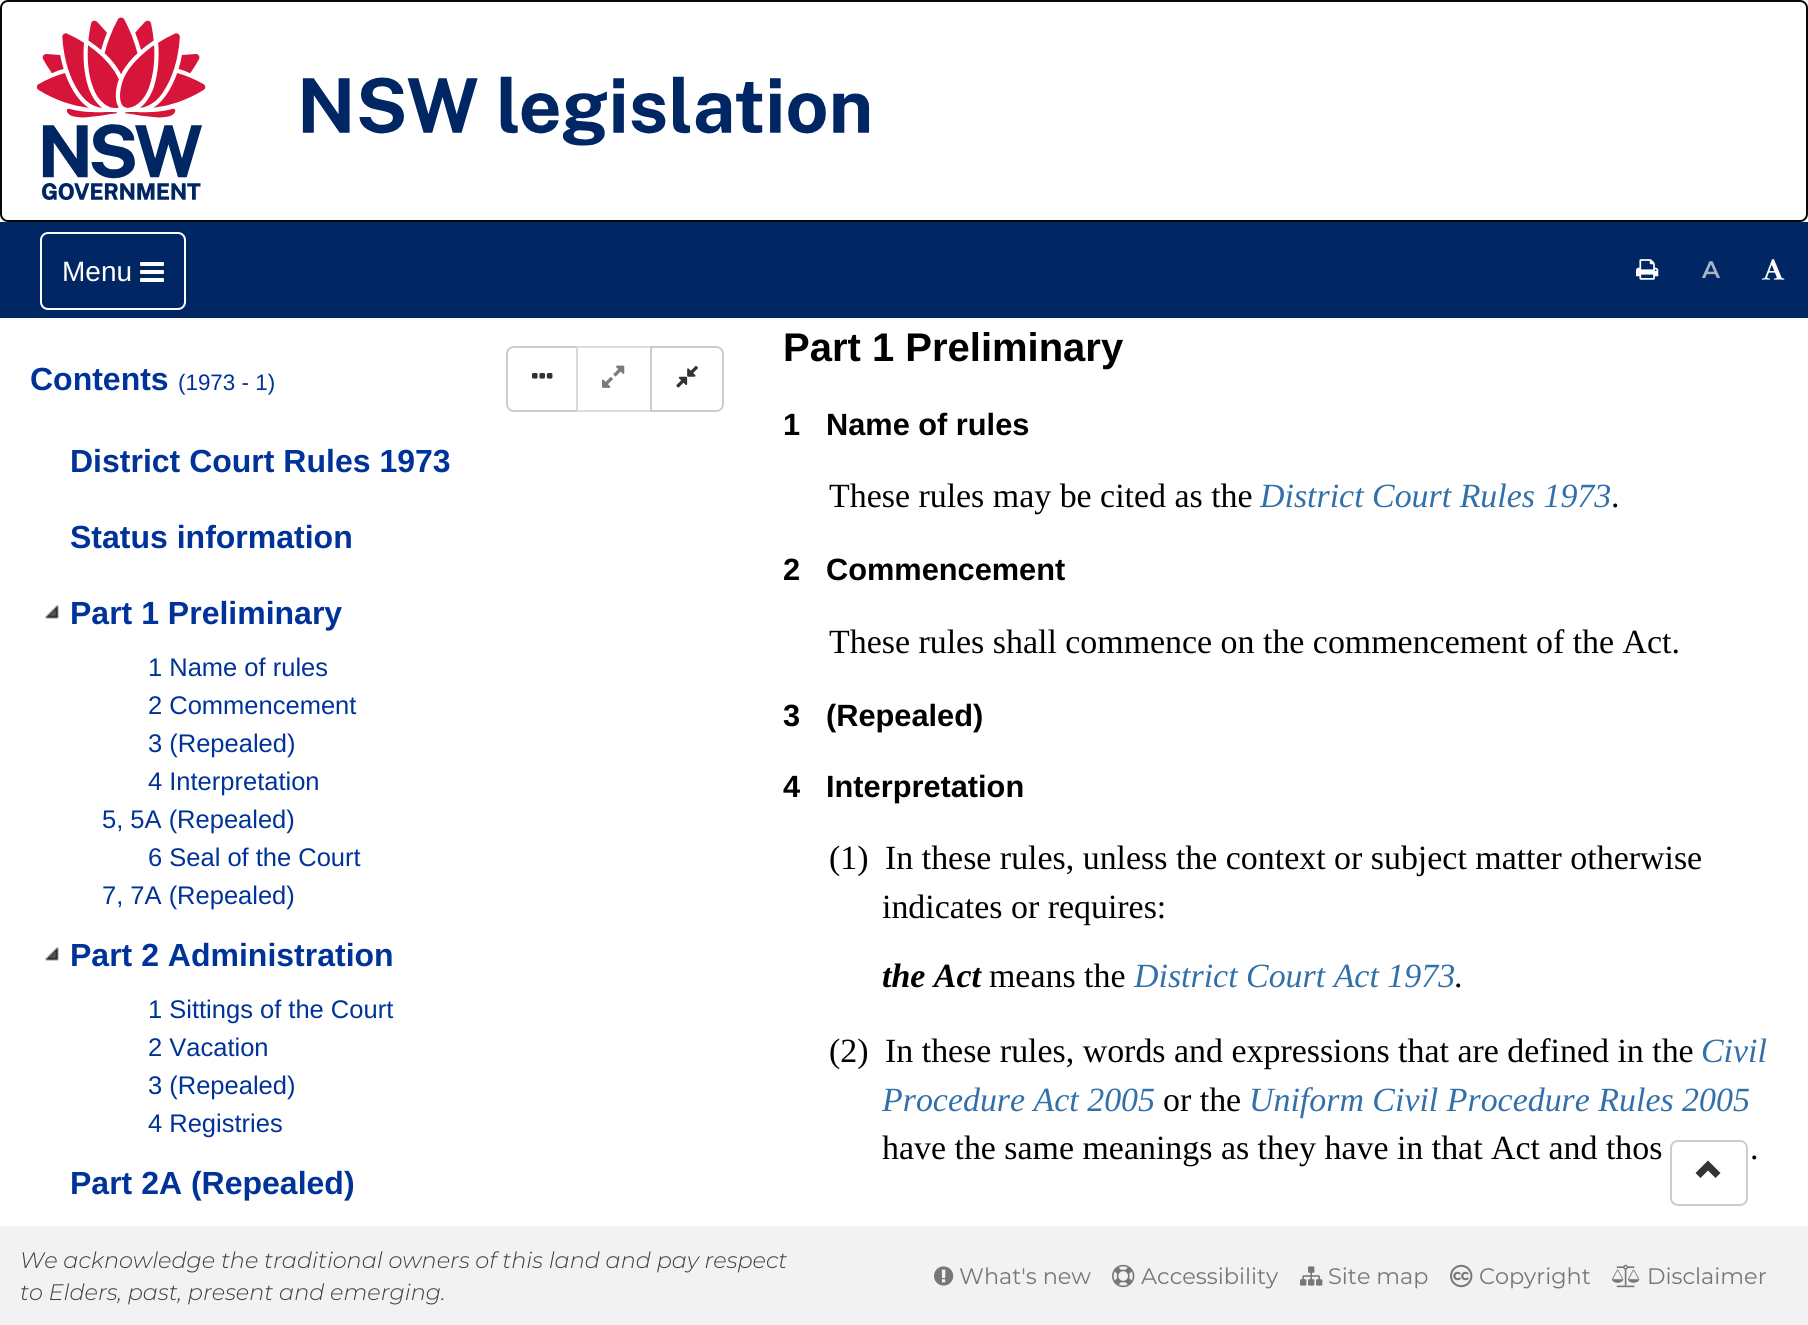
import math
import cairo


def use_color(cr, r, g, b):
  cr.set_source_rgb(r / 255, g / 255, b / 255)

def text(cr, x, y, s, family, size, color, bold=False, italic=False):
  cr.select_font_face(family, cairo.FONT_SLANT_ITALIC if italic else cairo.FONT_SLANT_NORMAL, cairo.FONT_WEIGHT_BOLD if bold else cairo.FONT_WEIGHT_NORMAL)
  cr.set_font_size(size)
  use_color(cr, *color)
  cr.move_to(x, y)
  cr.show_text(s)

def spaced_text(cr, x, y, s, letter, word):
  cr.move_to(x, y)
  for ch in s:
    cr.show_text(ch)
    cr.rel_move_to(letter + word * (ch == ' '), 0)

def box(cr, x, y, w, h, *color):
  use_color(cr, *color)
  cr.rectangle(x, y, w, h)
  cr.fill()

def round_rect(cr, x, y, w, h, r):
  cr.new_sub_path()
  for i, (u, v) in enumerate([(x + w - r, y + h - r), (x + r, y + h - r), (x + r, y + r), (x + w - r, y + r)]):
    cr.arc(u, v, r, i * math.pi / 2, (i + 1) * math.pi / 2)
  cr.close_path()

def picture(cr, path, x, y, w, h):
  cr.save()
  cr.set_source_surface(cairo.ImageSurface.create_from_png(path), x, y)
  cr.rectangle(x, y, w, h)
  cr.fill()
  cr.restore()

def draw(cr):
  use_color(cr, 255, 255, 255)
  cr.paint()
  round_rect(cr, 1, 1, 1806, 220, 7)
  use_color(cr, 8, 8, 8)
  cr.stroke()
  picture(cr, "img_01.png", 36, 17, 834, 183)
  box(cr, 0, 222, 1808, 96, 0, 38, 100)
  round_rect(cr, 41, 233, 144, 76, 7)
  use_color(cr, 255, 255, 255)
  cr.stroke()
  picture(cr, "img_02.png", 140, 262, 24, 20)
  picture(cr, "img_03.png", 1636, 259, 23, 21)
  picture(cr, "img_04.png", 1762, 259, 23, 21)
  cr.new_path()
  cr.move_to(514, 347)
  cr.line_to(577, 347)
  cr.line_to(577, 411)
  cr.line_to(514, 411)
  cr.curve_to(510, 411, 507, 408, 507, 404)
  cr.line_to(507, 354)
  cr.curve_to(507, 350, 510, 347, 514, 347)
  cr.close_path()
  use_color(cr, 204, 204, 204)
  cr.stroke()
  picture(cr, "img_05.png", 532, 373, 21, 6)
  cr.set_source_rgba(1, 1, 1, 0.65)
  cr.rectangle(576, 346, 2, 66)
  cr.fill()
  cr.rectangle(577, 347, 74, 64)
  cr.set_source_rgba(0.8, 0.8, 0.8, 0.65)
  cr.stroke()
  picture(cr, "img_06.png", 602, 365, 23, 23)
  use_color(cr, 255, 255, 255)
  cr.new_path()
  cr.move_to(651, 347)
  cr.line_to(716, 347)
  cr.curve_to(720, 347, 723, 350, 723, 354)
  cr.line_to(723, 404)
  cr.curve_to(723, 408, 720, 411, 716, 411)
  cr.line_to(651, 411)
  cr.close_path()
  cr.fill_preserve()
  use_color(cr, 204, 204, 204)
  cr.stroke()
  picture(cr, "img_07.png", 676, 365, 22, 23)
  picture(cr, "img_08.png", 45, 605, 14, 14)
  picture(cr, "img_08.png", 45, 947, 14, 14)
  round_rect(cr, 1671, 1141, 76, 64, 7)
  cr.stroke()
  use_color(cr, 51, 51, 51)
  cr.new_path()
  cr.move_to(1695.5, 1173)
  cr.line_to(1700.5, 1178)
  cr.line_to(1708, 1170.5)
  cr.line_to(1715.5, 1178)
  cr.line_to(1720.5, 1173)
  cr.line_to(1708, 1160.5)
  cr.close_path()
  cr.fill()
  box(cr, 0, 1226, 1808, 99, 242, 242, 242)
  picture(cr, "img_09.png", 934, 1266, 20, 20)
  picture(cr, "img_10.png", 1112, 1264, 23, 24)
  picture(cr, "img_11.png", 1300, 1266, 23, 20)
  picture(cr, "img_12.png", 1450, 1264, 23, 24)
  picture(cr, "img_13.png", 1612, 1264, 28, 24)
  text(cr, 62, 281, "Menu", "Liberation Sans", 28, (255, 255, 255))
  cr.select_font_face("Montserrat SemiBold")
  cr.set_font_size(24)
  use_color(cr, 166, 179, 201)
  spaced_text(cr, 1702, 278, "A", 1, 0)
  text(cr, 30, 390, "Contents", "Liberation Sans", 32, (0, 51, 153), bold=True)
  text(cr, 178, 390, "(1973 - 1)", "Liberation Sans", 22.4, (0, 51, 153))
  text(cr, 70, 472, "District Court Rules 1973", "Liberation Sans", 32, (0, 51, 153), bold=True)
  text(cr, 70, 548, "Status information", "Liberation Sans", 32, (0, 51, 153), bold=True)
  text(cr, 70, 624, "Part 1 Preliminary", "Liberation Sans", 32, (0, 51, 153), bold=True)
  text(cr, 148, 676, "1 Name of rules", "Liberation Sans", 25.5, (0, 51, 153))
  text(cr, 148, 714, "2 Commencement", "Liberation Sans", 25.5, (0, 51, 153))
  text(cr, 148, 752, "3 (Repealed)", "Liberation Sans", 25.5, (0, 51, 153))
  text(cr, 148, 790, "4 Interpretation", "Liberation Sans", 25.5, (0, 51, 153))
  text(cr, 102, 828, "5, 5A (Repealed)", "Liberation Sans", 25.5, (0, 51, 153))
  text(cr, 148, 866, "6 Seal of the Court", "Liberation Sans", 25.5, (0, 51, 153))
  text(cr, 102, 904, "7, 7A (Repealed)", "Liberation Sans", 25.5, (0, 51, 153))
  text(cr, 70, 966, "Part 2 Administration", "Liberation Sans", 32, (0, 51, 153), bold=True)
  text(cr, 148, 1018, "1 Sittings of the Court", "Liberation Sans", 25.5, (0, 51, 153))
  text(cr, 148, 1056, "2 Vacation", "Liberation Sans", 25.5, (0, 51, 153))
  text(cr, 148, 1094, "3 (Repealed)", "Liberation Sans", 25.5, (0, 51, 153))
  text(cr, 148, 1132, "4 Registries", "Liberation Sans", 25.5, (0, 51, 153))
  text(cr, 70, 1194, "Part 2A (Repealed)", "Liberation Sans", 32, (0, 51, 153), bold=True)
  text(cr, 783, 361, "Part 1 Preliminary", "Liberation Sans", 40, (0, 0, 0), bold=True)
  text(cr, 783, 435, "1", "Liberation Sans", 30.75, (0, 0, 0), bold=True)
  text(cr, 826, 435, "Name of rules", "Liberation Sans", 30.75, (0, 0, 0), bold=True)
  text(cr, 829, 507, "These rules may be cited as the", "Liberation Serif", 33.9, (0, 0, 0))
  text(cr, 1260, 507, "District Court Rules 1973", "Liberation Serif", 33.9, (49, 112, 171), italic=True)
  text(cr, 1611, 507, ".", "Liberation Serif", 33.9, (0, 0, 0))
  text(cr, 783, 580, "2", "Liberation Sans", 30.75, (0, 0, 0), bold=True)
  text(cr, 826, 580, "Commencement", "Liberation Sans", 30.75, (0, 0, 0), bold=True)
  text(cr, 829, 653, "These rules shall commence on the commencement of the Act.", "Liberation Serif", 33.9, (0, 0, 0))
  text(cr, 783, 726, "3", "Liberation Sans", 30.75, (0, 0, 0), bold=True)
  text(cr, 826, 726, "(Repealed)", "Liberation Sans", 30.75, (0, 0, 0), bold=True)
  text(cr, 783, 797, "4", "Liberation Sans", 30.75, (0, 0, 0), bold=True)
  text(cr, 826, 797, "Interpretation", "Liberation Sans", 30.75, (0, 0, 0), bold=True)
  text(cr, 829, 869, "(1)", "Liberation Serif", 33.9, (0, 0, 0))
  text(cr, 885, 869, "In these rules, unless the context or subject matter otherwise", "Liberation Serif", 33.9, (0, 0, 0))
  text(cr, 882, 918, "indicates or requires:", "Liberation Serif", 33.9, (0, 0, 0))
  text(cr, 882, 987, "the Act", "Liberation Serif", 33.9, (0, 0, 0), bold=True, italic=True)
  text(cr, 989, 987, "means the", "Liberation Serif", 33.9, (0, 0, 0))
  text(cr, 1134, 987, "District Court Act 1973", "Liberation Serif", 33.9, (49, 112, 171), italic=True)
  text(cr, 1454, 987, ".", "Liberation Serif", 33.9, (0, 0, 0))
  text(cr, 829, 1062, "(2)", "Liberation Serif", 33.9, (0, 0, 0))
  text(cr, 885, 1062, "In these rules, words and expressions that are defined in the", "Liberation Serif", 33.9, (0, 0, 0))
  text(cr, 1701, 1062, "Civil", "Liberation Serif", 33.9, (49, 112, 171), italic=True)
  text(cr, 882, 1111, "Procedure Act 2005", "Liberation Serif", 33.9, (49, 112, 171), italic=True)
  text(cr, 1163, 1111, "or the", "Liberation Serif", 33.9, (0, 0, 0))
  text(cr, 1249, 1111, "Uniform Civil Procedure Rules 2005", "Liberation Serif", 33.9, (49, 112, 171), italic=True)
  text(cr, 882, 1159, "have the same meanings as they have in that Act and thos", "Liberation Serif", 33.9, (0, 0, 0))
  text(cr, 1750, 1159, ".", "Liberation Serif", 33.9, (0, 0, 0))
  text(cr, 20, 1268, "We acknowledge the traditional owners of this land and pay respect", "Montserrat Light", 22.4, (61, 61, 61), italic=True)
  text(cr, 20, 1300, "to Elders, past, present and emerging.", "Montserrat Light", 22.4, (61, 61, 61), italic=True)
  text(cr, 959, 1284, "What's new", "Montserrat", 22.4, (119, 119, 119))
  text(cr, 1141, 1284, "Accessibility", "Montserrat", 22.4, (119, 119, 119))
  text(cr, 1328, 1284, "Site map", "Montserrat", 22.4, (119, 119, 119))
  text(cr, 1479, 1284, "Copyright", "Montserrat", 22.4, (119, 119, 119))
  text(cr, 1647, 1284, "Disclaimer", "Montserrat", 22.4, (119, 119, 119))


surface = cairo.ImageSurface(cairo.FORMAT_RGB24, 1808, 1325)
cr = cairo.Context(surface)
options = cairo.FontOptions()
options.set_hint_metrics(cairo.HINT_METRICS_OFF)
options.set_hint_style(cairo.HINT_STYLE_NONE)
cr.set_font_options(options)
cr.set_miter_limit(4)
draw(cr)
surface.write_to_png("out.png")
